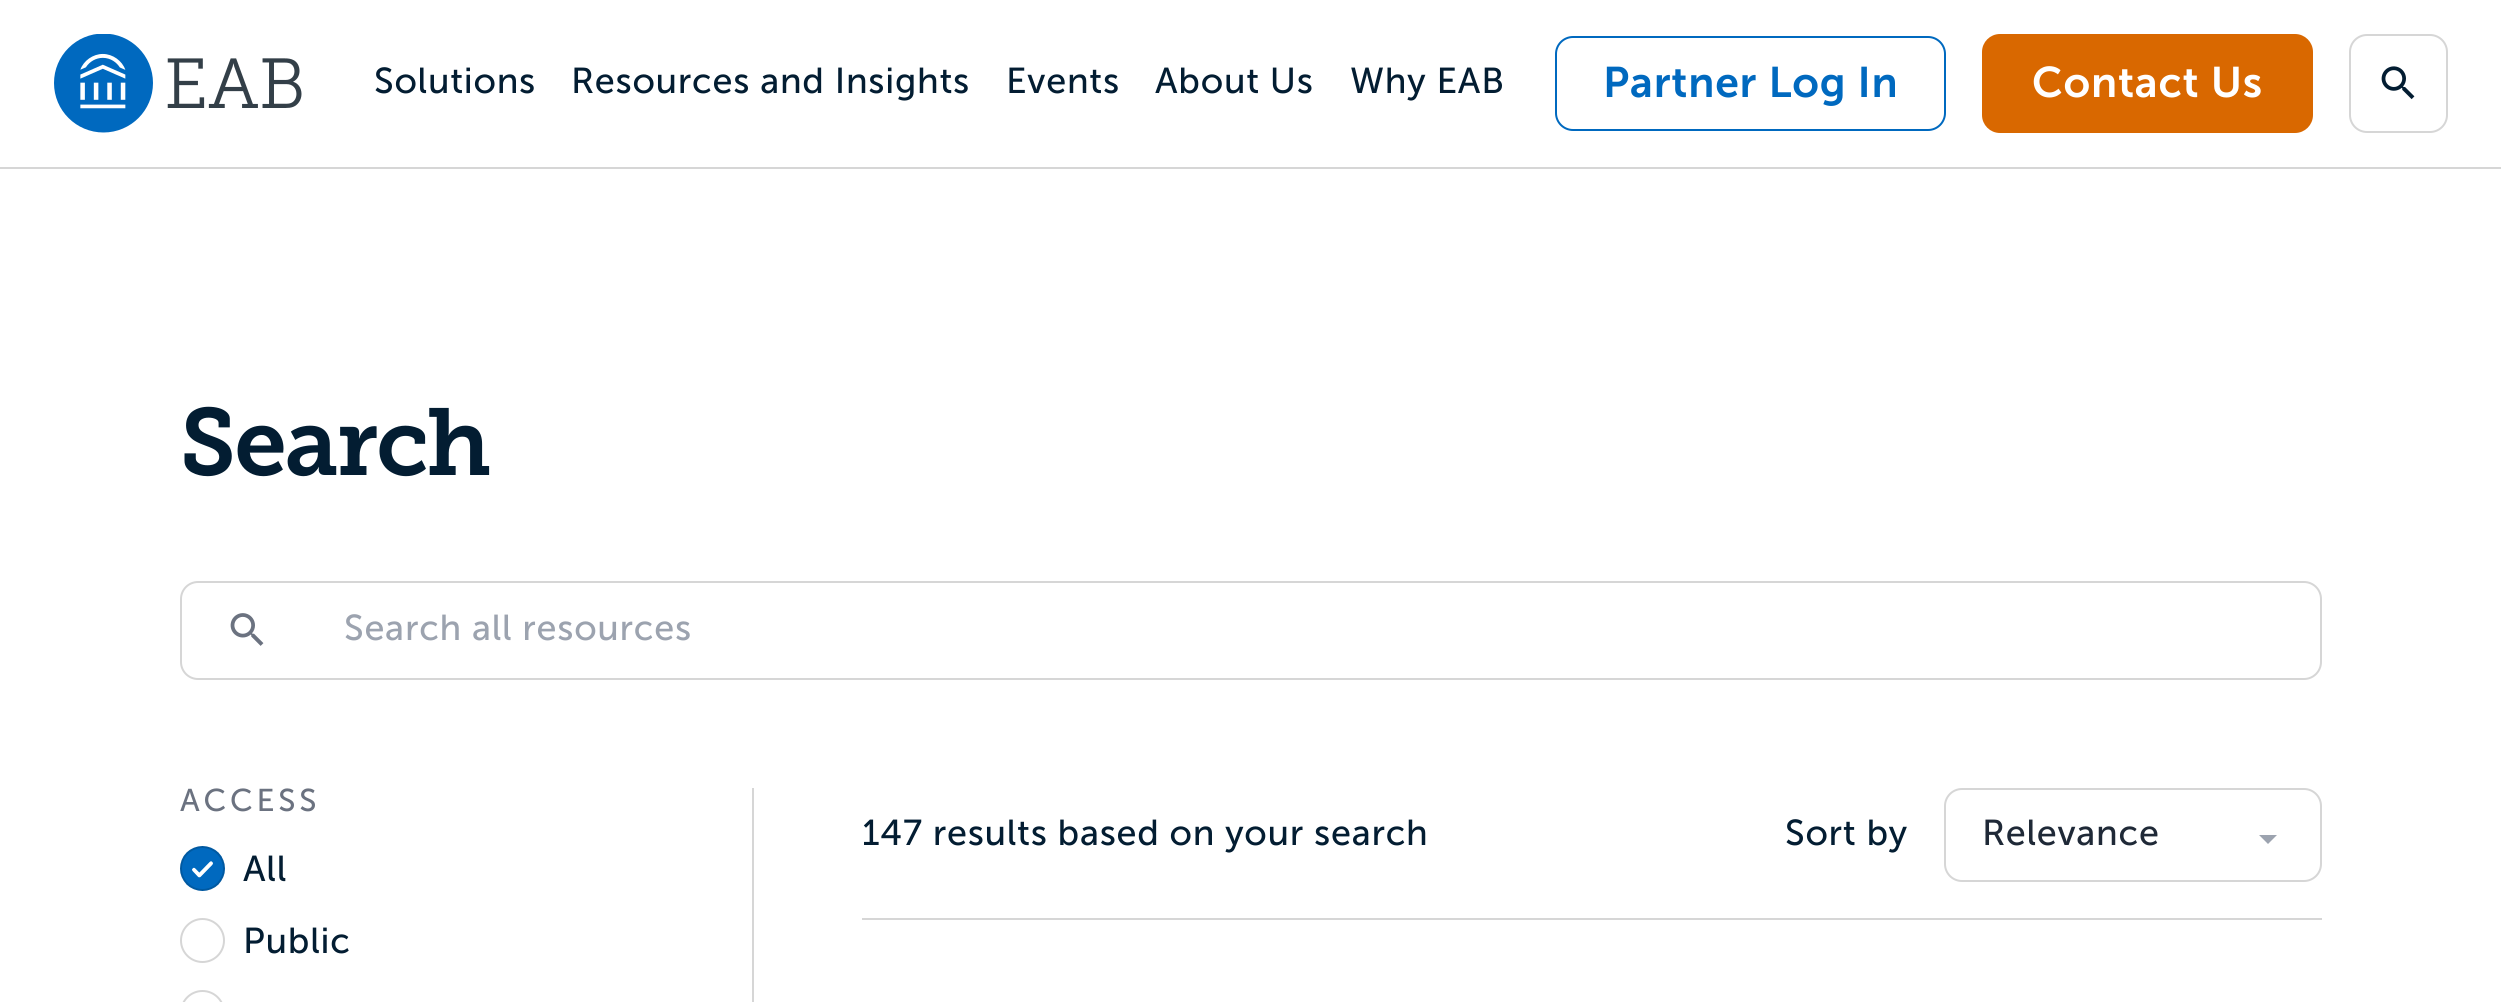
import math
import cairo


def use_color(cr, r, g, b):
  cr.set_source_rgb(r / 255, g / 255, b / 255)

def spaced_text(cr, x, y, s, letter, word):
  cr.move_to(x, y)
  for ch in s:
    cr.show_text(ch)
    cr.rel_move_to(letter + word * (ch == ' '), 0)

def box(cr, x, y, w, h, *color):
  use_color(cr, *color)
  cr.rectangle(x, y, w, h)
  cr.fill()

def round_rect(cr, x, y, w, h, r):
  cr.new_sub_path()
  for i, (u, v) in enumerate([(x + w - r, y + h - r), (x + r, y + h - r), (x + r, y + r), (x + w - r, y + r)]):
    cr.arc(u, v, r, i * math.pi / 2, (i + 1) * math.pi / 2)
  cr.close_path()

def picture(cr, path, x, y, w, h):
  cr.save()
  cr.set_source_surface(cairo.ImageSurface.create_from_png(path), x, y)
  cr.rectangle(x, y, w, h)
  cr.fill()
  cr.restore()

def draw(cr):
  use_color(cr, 255, 255, 255)
  cr.paint()
  box(cr, 0, 167, 2501, 2, 214, 214, 214)
  picture(cr, "img_01.png", 54, 34, 248, 99)
  round_rect(cr, 1556, 37, 389, 93, 17)
  use_color(cr, 0, 105, 191)
  cr.stroke()
  use_color(cr, 217, 104, 0)
  round_rect(cr, 1984.5, 36.5, 326, 94, 15.5)
  cr.fill_preserve()
  cr.set_line_width(5)
  cr.stroke()
  round_rect(cr, 2350, 35, 97, 97, 17)
  use_color(cr, 214, 214, 214)
  cr.set_line_width(2)
  cr.stroke()
  picture(cr, "img_02.png", 2381, 66, 34, 34)
  round_rect(cr, 181, 582, 2140, 97, 17)
  cr.stroke()
  picture(cr, "img_03.png", 230, 613, 34, 33)
  picture(cr, "img_04.png", 180, 846, 45, 45)
  cr.arc(202.5, 868.5, 21.5, 0, 2 * math.pi)
  cr.set_source_rgba(0, 0, 0, 0.16)
  cr.stroke()
  cr.arc(202.5, 940.5, 21.5, 0, 2 * math.pi)
  use_color(cr, 214, 214, 214)
  cr.stroke()
  round_rect(cr, 181, 991, 43, 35, 21.5)
  cr.stroke()
  box(cr, 752, 788, 2, 214, 214, 214, 214)
  box(cr, 862, 918, 1460, 2, 214, 214, 214)
  round_rect(cr, 1945, 789, 376, 92, 17)
  cr.stroke()
  use_color(cr, 156, 163, 175)
  cr.new_path()
  cr.move_to(2259, 835)
  cr.line_to(2277, 835)
  cr.line_to(2268, 844)
  cr.close_path()
  cr.fill()
  cr.select_font_face("Museo Sans")
  cr.set_font_size(36)
  use_color(cr, 3, 29, 50)
  spaced_text(cr, 374, 93, "Solutions", 0.75, 0)
  spaced_text(cr, 571, 93, "Resources and Insights", 0.75, 0)
  spaced_text(cr, 1006, 93, "Events", 0.75, 0)
  spaced_text(cr, 1155, 93, "About Us", 0.75, 0)
  spaced_text(cr, 1350, 93, "Why EAB", 0.75, 0)
  cr.select_font_face("Museo Sans SemiBold")
  cr.set_font_size(42.75)
  use_color(cr, 0, 105, 191)
  spaced_text(cr, 1603, 97, "Partner Log In", 0.8, 0)
  use_color(cr, 255, 255, 255)
  spaced_text(cr, 2032, 97, "Contact Us", 0.8, 0)
  cr.select_font_face("Museo Slab SemiBold")
  cr.set_font_size(94.5)
  use_color(cr, 3, 29, 50)
  spaced_text(cr, 180, 475, "Search", -2, 0)
  cr.select_font_face("Museo Sans")
  cr.set_font_size(36)
  use_color(cr, 156, 163, 175)
  spaced_text(cr, 344, 640, "Search all resources", 0.75, 0)
  cr.set_font_size(31.5)
  use_color(cr, 107, 114, 128)
  spaced_text(cr, 180, 811, "ACCESS", 3.75, 0)
  cr.set_font_size(36)
  use_color(cr, 3, 29, 50)
  spaced_text(cr, 243, 881, "All", 0.75, 0)
  spaced_text(cr, 243, 953, "Public", 0.75, 0)
  spaced_text(cr, 862, 845, "147 results based on your search", 0.75, 0)
  spaced_text(cr, 1785, 845, "Sort by", 0.75, 0)
  use_color(cr, 31, 41, 55)
  spaced_text(cr, 1982, 845, "Relevance", 0.75, 0)


surface = cairo.ImageSurface(cairo.FORMAT_RGB24, 2501, 1002)
cr = cairo.Context(surface)
options = cairo.FontOptions()
options.set_hint_metrics(cairo.HINT_METRICS_OFF)
options.set_hint_style(cairo.HINT_STYLE_NONE)
cr.set_font_options(options)
cr.set_miter_limit(4)
draw(cr)
surface.write_to_png("out.png")
